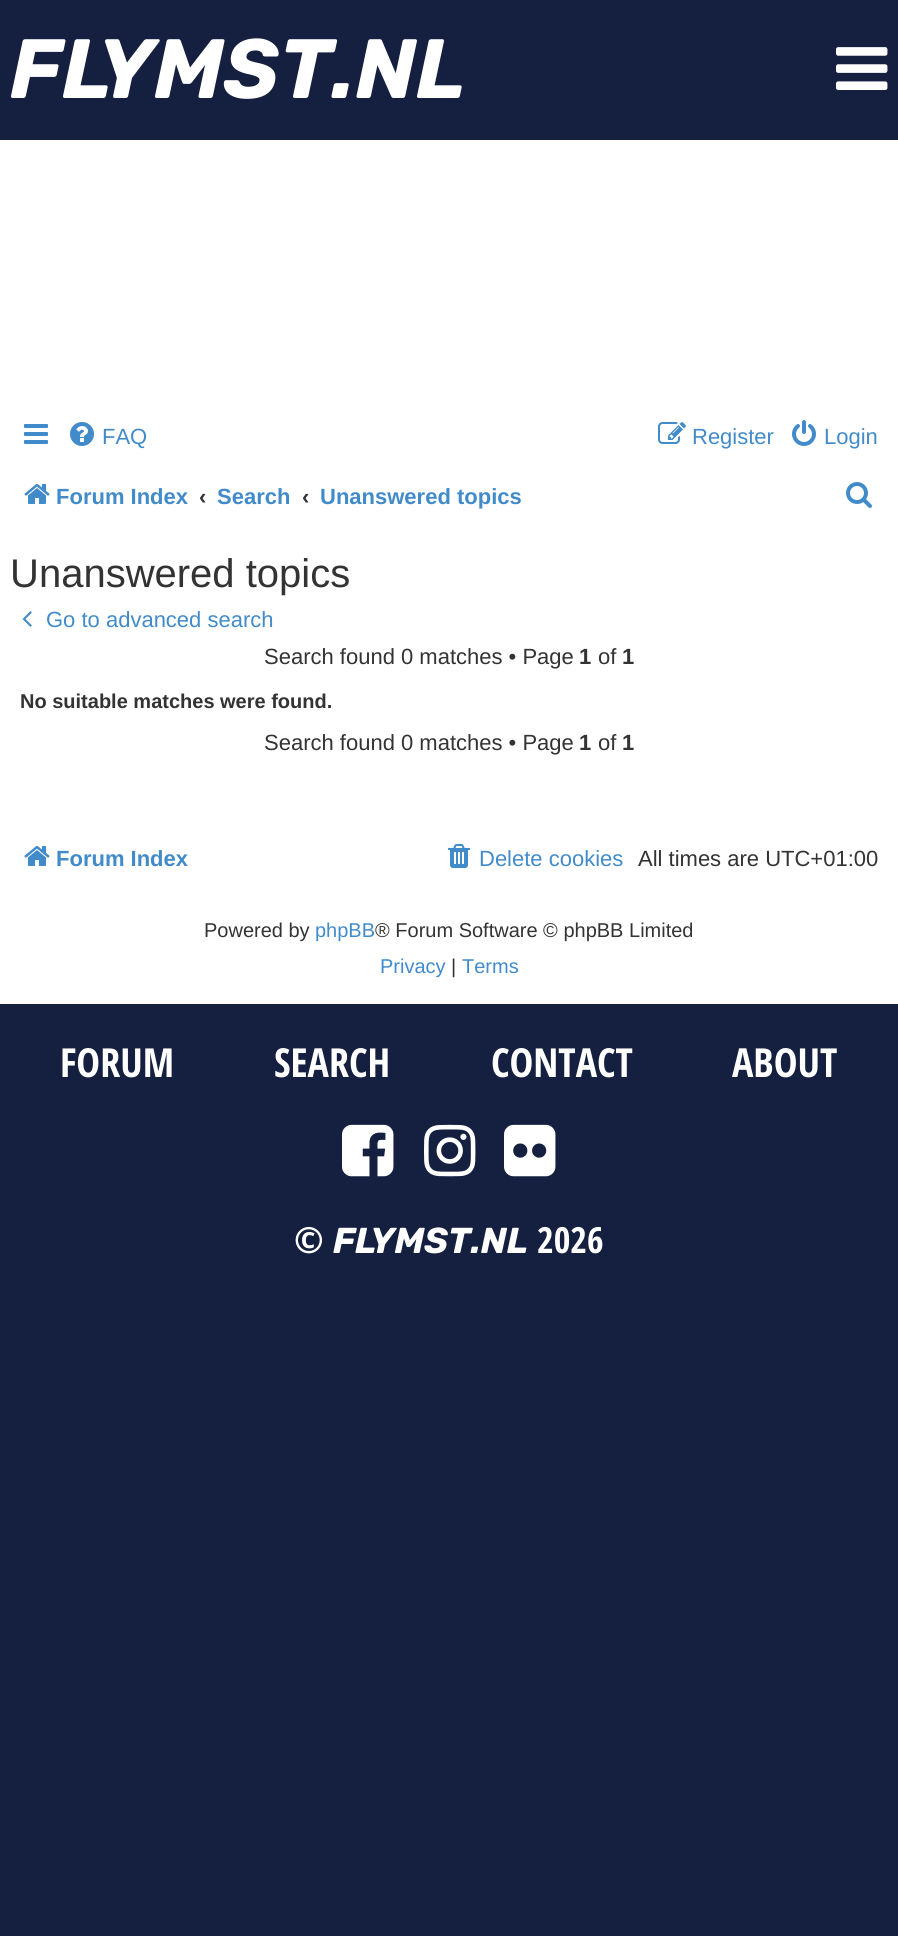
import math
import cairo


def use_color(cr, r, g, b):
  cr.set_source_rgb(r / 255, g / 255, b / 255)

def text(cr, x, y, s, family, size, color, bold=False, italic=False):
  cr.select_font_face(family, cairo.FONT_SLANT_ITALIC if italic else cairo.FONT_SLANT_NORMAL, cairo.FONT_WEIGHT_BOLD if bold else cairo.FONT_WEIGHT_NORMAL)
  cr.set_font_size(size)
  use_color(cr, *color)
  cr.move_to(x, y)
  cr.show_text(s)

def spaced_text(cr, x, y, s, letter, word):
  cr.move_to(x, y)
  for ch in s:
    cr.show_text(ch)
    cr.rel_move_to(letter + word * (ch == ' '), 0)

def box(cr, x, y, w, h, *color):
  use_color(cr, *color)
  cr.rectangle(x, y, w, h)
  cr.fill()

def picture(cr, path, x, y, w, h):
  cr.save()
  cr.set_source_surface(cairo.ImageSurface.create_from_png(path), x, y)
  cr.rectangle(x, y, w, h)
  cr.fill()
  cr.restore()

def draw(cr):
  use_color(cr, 21, 32, 64)
  cr.paint()
  picture(cr, "img_01.png", 836, 47, 52, 43)
  box(cr, 0, 140, 898, 864, 255, 255, 255)
  picture(cr, "img_02.png", 24, 424, 24, 20)
  picture(cr, "img_03.png", 70, 422, 24, 24)
  picture(cr, "img_04.png", 658, 422, 28, 22)
  picture(cr, "img_05.png", 792, 420, 24, 26)
  picture(cr, "img_06.png", 24, 484, 26, 20)
  picture(cr, "img_07.png", 846, 482, 26, 26)
  picture(cr, "img_08.png", 22, 611, 10, 16)
  picture(cr, "img_06.png", 24, 846, 26, 20)
  picture(cr, "img_09.png", 448, 844, 22, 24)
  picture(cr, "img_10.png", 342, 1124, 52, 53)
  picture(cr, "img_11.png", 424, 1124, 52, 53)
  picture(cr, "img_12.png", 504, 1124, 52, 53)
  text(cr, 10, 98, "F", "Rubik Light", 84, (255, 255, 255), italic=True)
  spaced_text(cr, 62, 98, "L", -14, 0)
  text(cr, 97, 98, "YMST.NL", "Rubik Light", 84, (255, 255, 255), italic=True)
  text(cr, 102, 444, "FAQ", "Liberation Sans", 22, (66, 139, 202))
  text(cr, 692, 444, "Register", "Liberation Sans", 22, (66, 139, 202))
  text(cr, 824, 444, "Login", "Liberation Sans", 22, (66, 139, 202))
  text(cr, 56, 504, "Forum Index", "Liberation Sans", 22, (66, 139, 202), bold=True)
  text(cr, 199, 504, "‹", "Liberation Sans", 22, (51, 51, 51), bold=True)
  text(cr, 217, 504, "Search", "Liberation Sans", 22, (66, 139, 202), bold=True)
  text(cr, 302, 504, "‹", "Liberation Sans", 22, (51, 51, 51), bold=True)
  text(cr, 320, 504, "Unanswered topics", "Liberation Sans", 22, (66, 139, 202), bold=True)
  text(cr, 10, 587, "Unanswered topics", "Liberation Sans", 40, (51, 51, 51))
  text(cr, 46, 627, "Go to advanced search", "Liberation Sans", 22, (66, 139, 202))
  text(cr, 264, 664, "Search found 0 matches • Page", "Liberation Sans", 22, (51, 51, 51))
  text(cr, 579, 664, "1", "Liberation Sans", 22, (51, 51, 51), bold=True)
  text(cr, 598, 664, "of", "Liberation Sans", 22, (51, 51, 51))
  text(cr, 622, 664, "1", "Liberation Sans", 22, (51, 51, 51), bold=True)
  text(cr, 20, 708, "No suitable matches were found.", "Liberation Sans", 20, (51, 51, 51), bold=True)
  text(cr, 264, 750, "Search found 0 matches • Page", "Liberation Sans", 22, (51, 51, 51))
  text(cr, 579, 750, "1", "Liberation Sans", 22, (51, 51, 51), bold=True)
  text(cr, 598, 750, "of", "Liberation Sans", 22, (51, 51, 51))
  text(cr, 622, 750, "1", "Liberation Sans", 22, (51, 51, 51), bold=True)
  text(cr, 56, 866, "Forum Index", "Liberation Sans", 22, (66, 139, 202), bold=True)
  text(cr, 479, 866, "Delete cookies", "Liberation Sans", 22, (66, 139, 202))
  text(cr, 638, 866, "All times are UTC+01:00", "Liberation Sans", 22, (51, 51, 51))
  text(cr, 204, 937, "Powered by", "Liberation Sans", 20, (51, 51, 51))
  text(cr, 315, 937, "phpBB", "Liberation Sans", 20, (66, 139, 202))
  text(cr, 375, 937, "® Forum Software © phpBB Limited", "Liberation Sans", 20, (51, 51, 51))
  text(cr, 380, 973, "Privacy", "Liberation Sans", 20, (66, 139, 202))
  text(cr, 451, 973, "|", "Liberation Sans", 20, (51, 51, 51))
  text(cr, 462, 973, "Terms", "Liberation Sans", 20, (66, 139, 202))
  text(cr, 60, 1077, "FORUM", "Open Sans Condensed", 40, (255, 255, 255), bold=True)
  text(cr, 274, 1077, "SEARCH", "Open Sans Condensed", 40, (255, 255, 255), bold=True)
  text(cr, 491, 1077, "CONTACT", "Open Sans Condensed", 40, (255, 255, 255), bold=True)
  text(cr, 732, 1077, "ABOUT", "Open Sans Condensed", 40, (255, 255, 255), bold=True)
  text(cr, 294, 1253, "©", "Open Sans Condensed", 36, (255, 255, 255), bold=True)
  text(cr, 333, 1253, "F", "Rubik Light", 36, (255, 255, 255), italic=True)
  spaced_text(cr, 355, 1253, "L", -6, 0)
  text(cr, 370, 1253, "YMST.NL", "Rubik Light", 36, (255, 255, 255), italic=True)
  text(cr, 537, 1253, "2026", "Open Sans Condensed", 36, (255, 255, 255), bold=True)


surface = cairo.ImageSurface(cairo.FORMAT_RGB24, 898, 1936)
cr = cairo.Context(surface)
options = cairo.FontOptions()
options.set_hint_metrics(cairo.HINT_METRICS_OFF)
options.set_hint_style(cairo.HINT_STYLE_NONE)
cr.set_font_options(options)
cr.set_miter_limit(4)
draw(cr)
surface.write_to_png("out.png")
